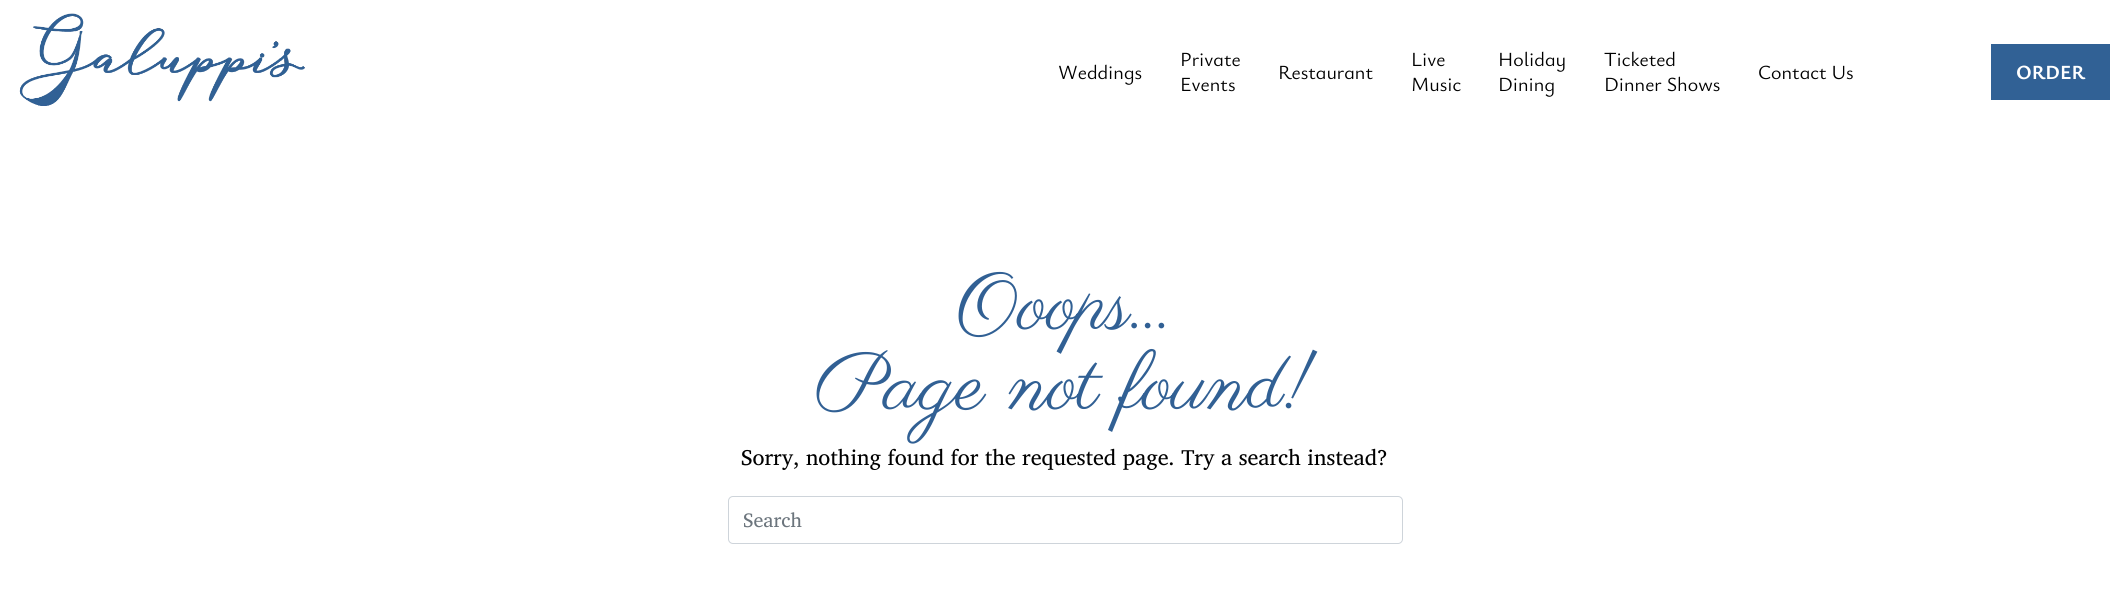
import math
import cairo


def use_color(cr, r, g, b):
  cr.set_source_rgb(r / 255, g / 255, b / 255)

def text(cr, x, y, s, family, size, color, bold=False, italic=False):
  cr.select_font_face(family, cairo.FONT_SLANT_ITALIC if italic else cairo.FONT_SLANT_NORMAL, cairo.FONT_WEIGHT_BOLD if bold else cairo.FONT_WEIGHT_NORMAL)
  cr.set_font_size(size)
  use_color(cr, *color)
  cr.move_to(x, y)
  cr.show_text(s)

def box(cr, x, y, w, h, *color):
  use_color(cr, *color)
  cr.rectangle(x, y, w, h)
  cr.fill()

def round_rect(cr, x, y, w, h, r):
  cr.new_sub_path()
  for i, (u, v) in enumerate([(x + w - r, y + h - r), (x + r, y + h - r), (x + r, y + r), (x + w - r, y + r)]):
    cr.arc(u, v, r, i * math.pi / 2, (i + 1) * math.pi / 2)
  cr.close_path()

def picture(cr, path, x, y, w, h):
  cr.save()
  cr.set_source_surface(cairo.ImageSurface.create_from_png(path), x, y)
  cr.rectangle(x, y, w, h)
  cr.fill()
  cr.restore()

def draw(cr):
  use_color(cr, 255, 255, 255)
  cr.paint()
  picture(cr, "img_01.png", 19, 13, 286, 93)
  box(cr, 1991, 44, 119, 56, 49, 97, 149)
  round_rect(cr, 728.5, 496.5, 674, 47, 4.5)
  use_color(cr, 206, 212, 218)
  cr.set_line_width(1)
  cr.stroke()
  text(cr, 1058, 79, "Weddings", "Ysabeau Infant", 20, (0, 0, 0))
  text(cr, 1180, 66, "Private", "Ysabeau Infant", 20, (0, 0, 0))
  text(cr, 1180, 91, "Events", "Ysabeau Infant", 20, (0, 0, 0))
  text(cr, 1278, 79, "Restaurant", "Ysabeau Infant", 20, (0, 0, 0))
  text(cr, 1411, 66, "Live", "Ysabeau Infant", 20, (0, 0, 0))
  text(cr, 1411, 91, "Music", "Ysabeau Infant", 20, (0, 0, 0))
  text(cr, 1498, 66, "Holiday", "Ysabeau Infant", 20, (0, 0, 0))
  text(cr, 1498, 91, "Dining", "Ysabeau Infant", 20, (0, 0, 0))
  text(cr, 1604, 66, "Ticketed", "Ysabeau Infant", 20, (0, 0, 0))
  text(cr, 1604, 91, "Dinner Shows", "Ysabeau Infant", 20, (0, 0, 0))
  text(cr, 1758, 79, "Contact Us", "Ysabeau Infant", 20, (0, 0, 0))
  text(cr, 2016, 79, "ORDER", "Ysabeau Infant", 20, (255, 255, 255), bold=True)
  text(cr, 957, 328, "Ooops...", "Parisienne", 80, (49, 96, 148))
  text(cr, 815, 408, "Page not found!", "Parisienne", 80, (49, 96, 148))
  text(cr, 741, 465, "Sorry, nothing found for the requested page. Try a search instead?", "Charis SIL", 22, (0, 0, 0))
  cr.save()
  cr.rectangle(744, 504, 642, 32)
  cr.clip()
  text(cr, 743, 527, "Search", "Charis SIL", 20, (108, 117, 125))
  cr.restore()


surface = cairo.ImageSurface(cairo.FORMAT_RGB24, 2128, 614)
cr = cairo.Context(surface)
options = cairo.FontOptions()
options.set_hint_metrics(cairo.HINT_METRICS_OFF)
options.set_hint_style(cairo.HINT_STYLE_NONE)
cr.set_font_options(options)
cr.set_miter_limit(4)
draw(cr)
surface.write_to_png("out.png")
